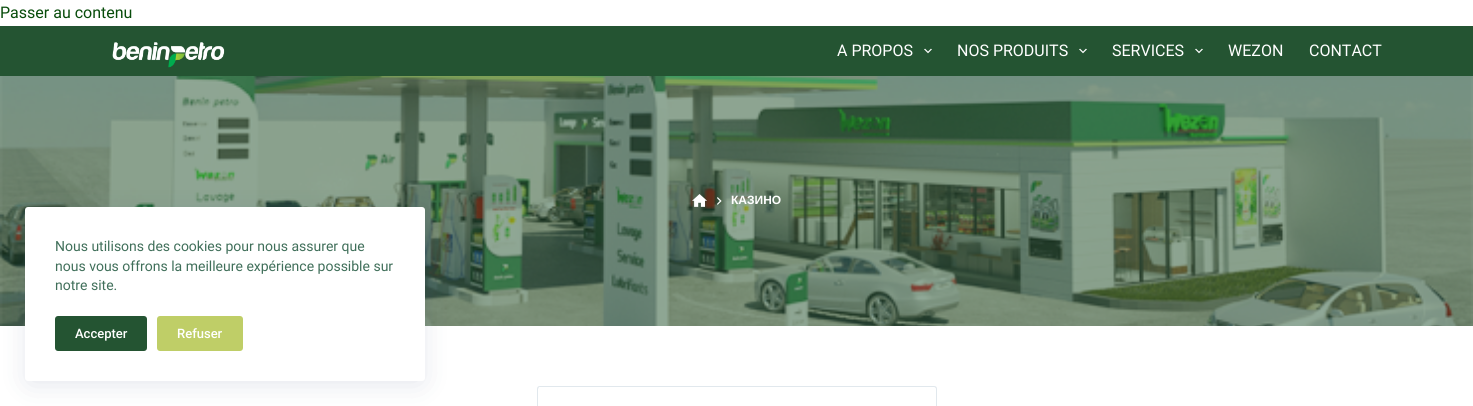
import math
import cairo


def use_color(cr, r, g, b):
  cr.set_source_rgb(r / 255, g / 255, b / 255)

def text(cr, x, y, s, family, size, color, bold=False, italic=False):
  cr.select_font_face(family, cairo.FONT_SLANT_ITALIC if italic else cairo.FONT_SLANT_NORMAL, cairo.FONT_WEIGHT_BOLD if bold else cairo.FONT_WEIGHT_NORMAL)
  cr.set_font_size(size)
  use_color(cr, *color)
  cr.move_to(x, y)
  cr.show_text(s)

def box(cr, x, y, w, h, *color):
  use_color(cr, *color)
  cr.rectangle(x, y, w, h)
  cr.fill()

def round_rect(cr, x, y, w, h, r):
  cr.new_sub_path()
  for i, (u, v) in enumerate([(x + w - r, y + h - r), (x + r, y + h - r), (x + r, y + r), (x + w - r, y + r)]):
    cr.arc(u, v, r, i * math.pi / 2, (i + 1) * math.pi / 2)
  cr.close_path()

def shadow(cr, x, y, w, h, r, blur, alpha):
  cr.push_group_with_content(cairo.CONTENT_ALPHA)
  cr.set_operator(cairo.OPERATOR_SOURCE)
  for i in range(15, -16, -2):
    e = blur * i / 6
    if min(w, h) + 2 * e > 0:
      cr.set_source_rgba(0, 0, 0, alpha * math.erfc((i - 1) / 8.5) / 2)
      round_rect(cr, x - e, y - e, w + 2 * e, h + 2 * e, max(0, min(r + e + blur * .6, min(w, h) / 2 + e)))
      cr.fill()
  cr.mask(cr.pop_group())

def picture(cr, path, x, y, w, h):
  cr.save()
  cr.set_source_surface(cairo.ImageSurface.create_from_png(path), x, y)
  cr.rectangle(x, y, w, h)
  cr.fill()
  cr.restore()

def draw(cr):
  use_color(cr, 255, 255, 255)
  cr.paint()
  box(cr, 0, 26, 1473, 50, 36, 84, 50)
  picture(cr, "img_01.png", 112, 42, 113, 26)
  picture(cr, "img_02.png", 924, 48, 8, 6)
  picture(cr, "img_02.png", 1079, 48, 8, 6)
  picture(cr, "img_02.png", 1195, 48, 8, 6)
  picture(cr, "img_03.png", 0, 76, 1473, 250)
  picture(cr, "img_04.png", 692, 194, 15, 13)
  picture(cr, "img_05.png", 717, 197, 5, 8)
  use_color(cr, 225, 232, 237)
  cr.set_fill_rule(cairo.FILL_RULE_EVEN_ODD)
  cr.new_path()
  cr.move_to(540, 386)
  cr.line_to(897, 386)
  cr.line_to(897, 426)
  cr.line_to(540, 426)
  cr.curve_to(538, 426, 537, 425, 537, 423)
  cr.line_to(537, 389)
  cr.curve_to(537, 387, 538, 386, 540, 386)
  cr.close_path()
  cr.move_to(540, 387)
  cr.line_to(897, 387)
  cr.line_to(897, 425)
  cr.line_to(539, 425)
  cr.curve_to(537, 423, 538, 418, 538, 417)
  cr.line_to(538, 389)
  cr.line_to(539, 387)
  cr.close_path()
  cr.fill()
  cr.new_path()
  cr.move_to(897, 386)
  cr.line_to(934, 386)
  cr.curve_to(936, 386, 937, 387, 937, 389)
  cr.line_to(937, 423)
  cr.curve_to(937, 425, 936, 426, 934, 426)
  cr.line_to(897, 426)
  cr.close_path()
  cr.move_to(897, 387)
  cr.line_to(934, 387)
  cr.curve_to(935, 387, 936, 388, 936, 389)
  cr.line_to(936, 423)
  cr.curve_to(936, 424, 935, 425, 934, 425)
  cr.line_to(897, 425)
  cr.close_path()
  cr.fill()
  use_color(cr, 34, 56, 101)
  shadow(cr, 30, 217, 390, 164, 0, 15, 0.15)
  use_color(cr, 255, 255, 255)
  round_rect(cr, 25, 207, 400, 174, 3)
  cr.fill()
  use_color(cr, 36, 84, 50)
  round_rect(cr, 55, 316, 92, 35, 3)
  cr.fill()
  use_color(cr, 191, 206, 103)
  round_rect(cr, 157, 316, 86, 35, 3)
  cr.fill()
  text(cr, 0, 18, "Passer au contenu", "Roboto", 16, (8, 76, 11))
  text(cr, 837, 56, "A PROPOS", "Roboto", 16, (255, 255, 255))
  text(cr, 957, 56, "NOS PRODUITS", "Roboto", 16, (255, 255, 255))
  text(cr, 1112, 56, "SERVICES", "Roboto", 16, (255, 255, 255))
  text(cr, 1228, 56, "WEZON", "Roboto", 16, (255, 255, 255))
  text(cr, 1309, 56, "CONTACT", "Roboto", 16, (255, 255, 255))
  text(cr, 731, 204, "КАЗИНО", "Liberation Sans", 12, (255, 255, 255), bold=True)
  text(cr, 55, 251, "Nous utilisons des cookies pour nous assurer que", "Roboto", 14, (64, 111, 90))
  text(cr, 55, 271, "nous vous offrons la meilleure expérience possible sur", "Roboto", 14, (64, 111, 90))
  text(cr, 55, 290, "notre site.", "Roboto", 14, (64, 111, 90))
  text(cr, 75, 338, "Accepter", "Roboto Medium", 13, (255, 255, 255))
  text(cr, 177, 338, "Refuser", "Roboto Medium", 13, (255, 255, 255))


surface = cairo.ImageSurface(cairo.FORMAT_RGB24, 1473, 406)
cr = cairo.Context(surface)
options = cairo.FontOptions()
options.set_hint_metrics(cairo.HINT_METRICS_OFF)
options.set_hint_style(cairo.HINT_STYLE_NONE)
cr.set_font_options(options)
cr.set_miter_limit(4)
draw(cr)
surface.write_to_png("out.png")
